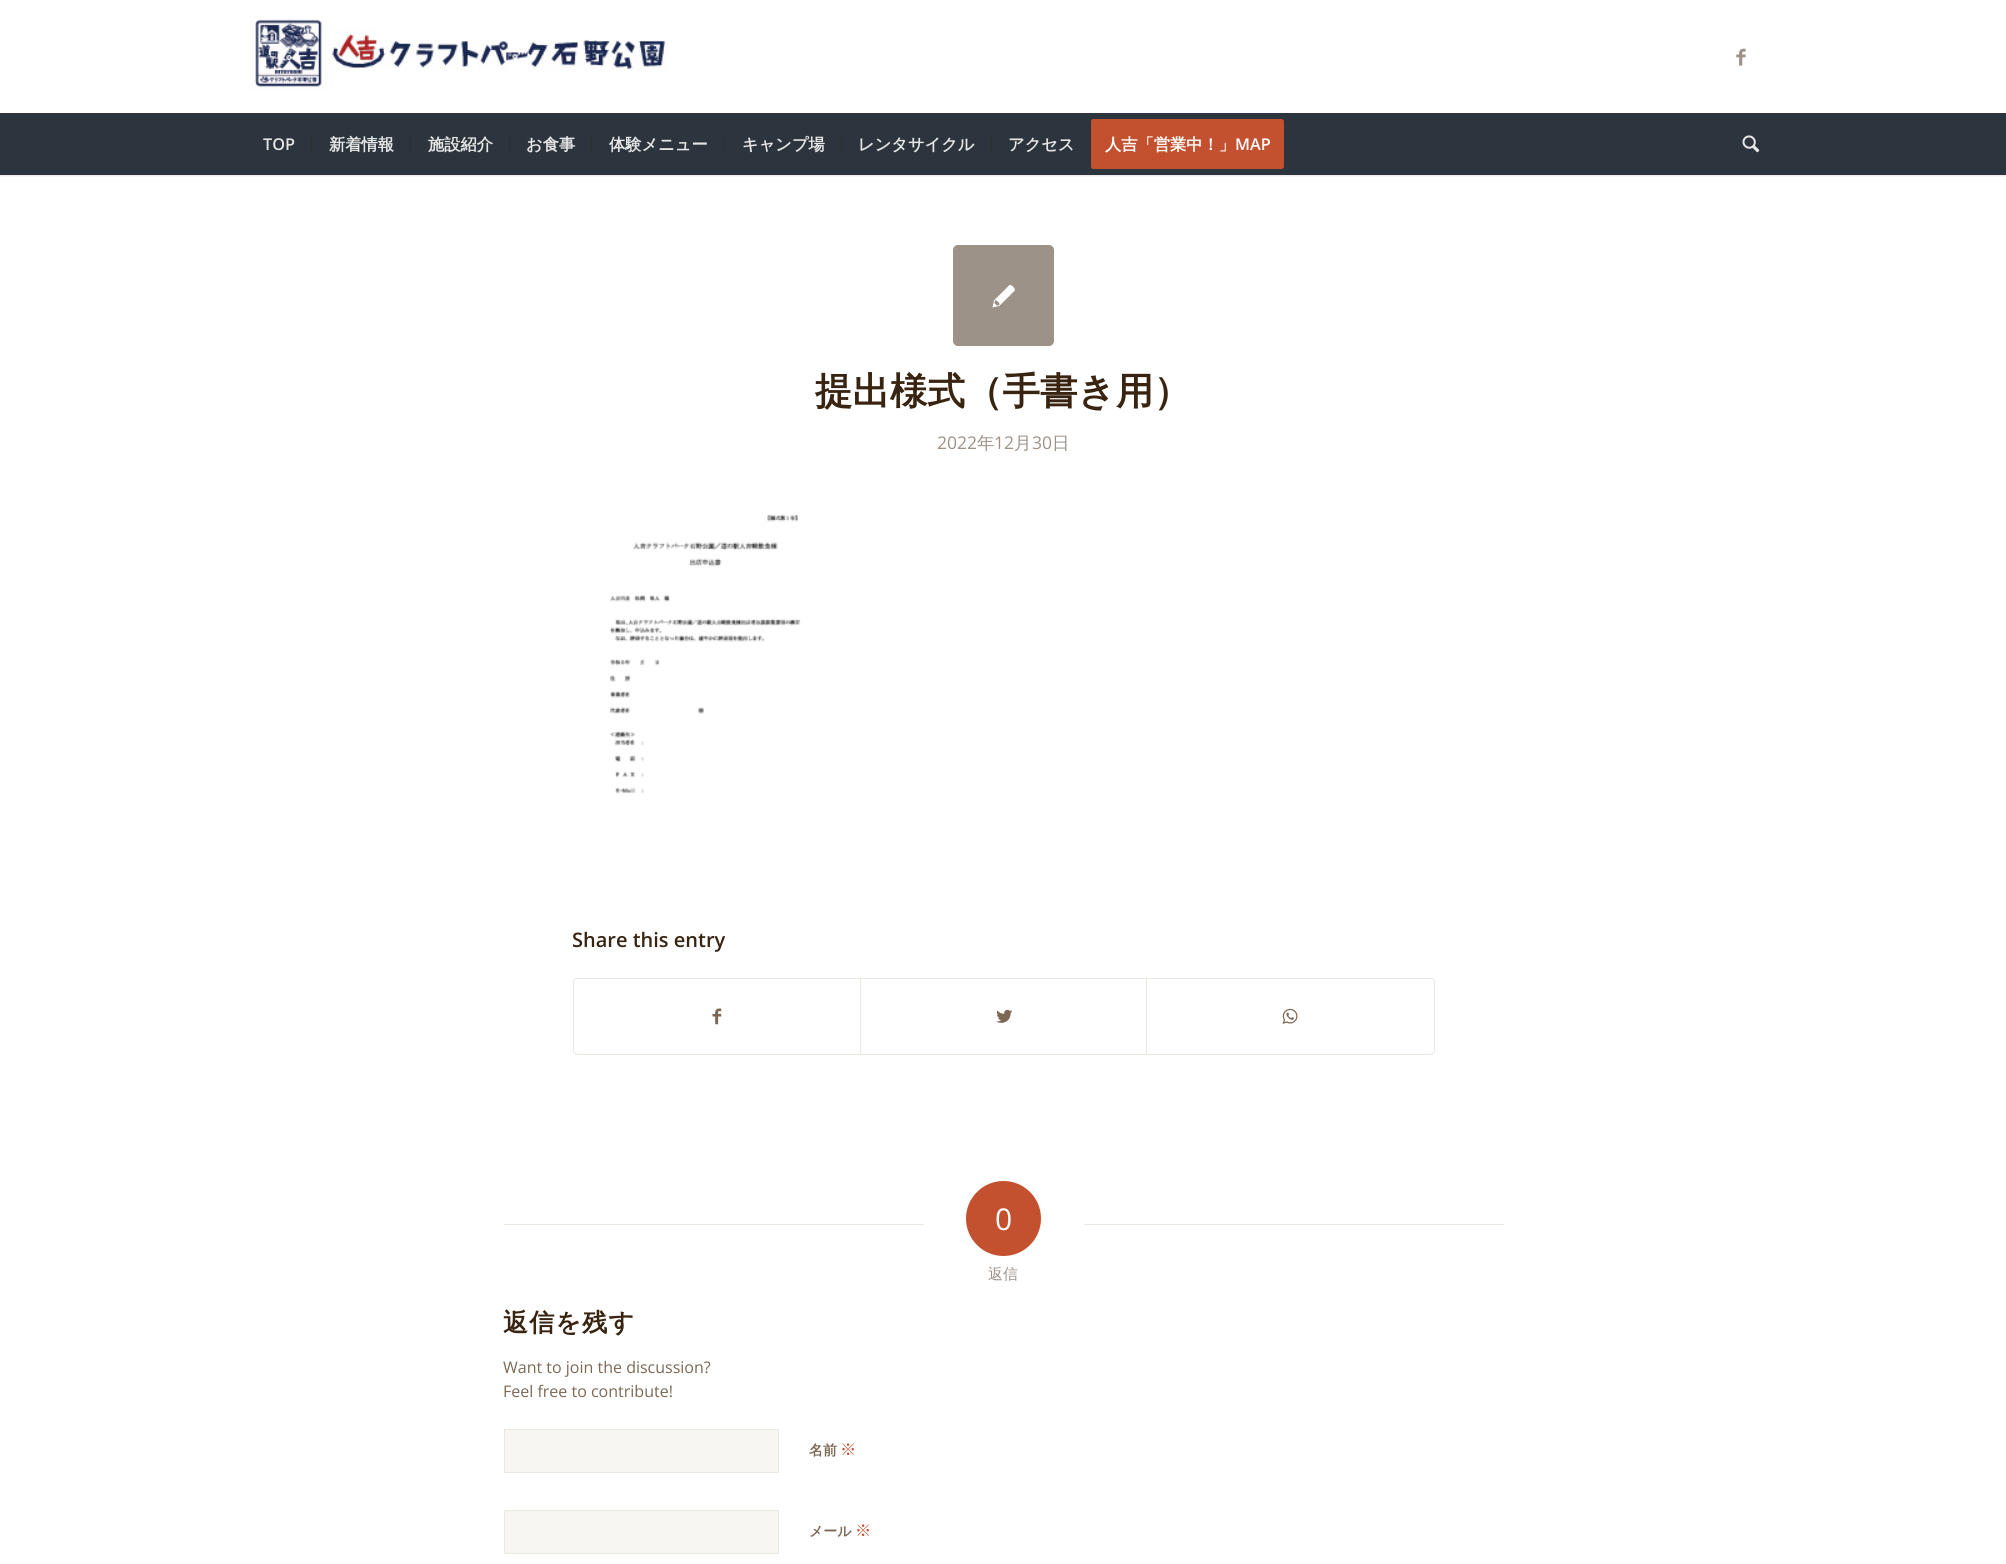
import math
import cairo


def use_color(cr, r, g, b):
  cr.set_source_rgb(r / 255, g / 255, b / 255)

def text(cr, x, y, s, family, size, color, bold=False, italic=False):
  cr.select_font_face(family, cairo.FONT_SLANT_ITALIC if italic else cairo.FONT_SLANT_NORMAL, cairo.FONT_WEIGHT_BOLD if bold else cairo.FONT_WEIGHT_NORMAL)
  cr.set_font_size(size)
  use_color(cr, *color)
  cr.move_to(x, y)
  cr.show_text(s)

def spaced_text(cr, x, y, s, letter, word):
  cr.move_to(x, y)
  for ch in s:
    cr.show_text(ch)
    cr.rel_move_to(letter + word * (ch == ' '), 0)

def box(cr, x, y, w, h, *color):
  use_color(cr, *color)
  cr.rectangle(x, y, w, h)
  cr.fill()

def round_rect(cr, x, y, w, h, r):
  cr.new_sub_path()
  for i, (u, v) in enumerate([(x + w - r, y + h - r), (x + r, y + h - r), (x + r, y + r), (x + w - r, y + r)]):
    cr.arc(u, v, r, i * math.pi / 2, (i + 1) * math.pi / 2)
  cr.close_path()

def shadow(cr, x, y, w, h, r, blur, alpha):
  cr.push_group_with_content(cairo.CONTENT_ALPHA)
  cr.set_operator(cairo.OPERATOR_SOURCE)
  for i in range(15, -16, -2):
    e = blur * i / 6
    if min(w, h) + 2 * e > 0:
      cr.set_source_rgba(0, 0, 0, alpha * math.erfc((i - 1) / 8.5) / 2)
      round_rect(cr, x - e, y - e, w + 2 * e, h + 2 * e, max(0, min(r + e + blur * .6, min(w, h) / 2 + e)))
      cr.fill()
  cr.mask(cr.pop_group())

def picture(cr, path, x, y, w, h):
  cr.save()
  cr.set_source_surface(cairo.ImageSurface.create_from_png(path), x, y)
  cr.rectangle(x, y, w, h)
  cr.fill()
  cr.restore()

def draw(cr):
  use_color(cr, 255, 255, 255)
  cr.paint()
  cr.save()
  cr.rectangle(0, 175, 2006, 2)
  cr.clip()
  use_color(cr, 0, 0, 0)
  shadow(cr, -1, -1, 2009, 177, 0, 1, 0.1)
  cr.restore()
  picture(cr, "img_01.png", 248, 19, 419, 71)
  picture(cr, "img_02.png", 1736, 48, 10, 18)
  box(cr, 0, 113, 2006, 62, 44, 53, 61)
  box(cr, 311, 133, 1, 22, 44, 48, 51)
  box(cr, 410, 133, 1, 22, 44, 48, 51)
  box(cr, 509, 133, 1, 22, 44, 48, 51)
  box(cr, 591, 133, 1, 22, 44, 48, 51)
  box(cr, 724, 133, 1, 22, 44, 48, 51)
  box(cr, 841, 133, 1, 22, 44, 48, 51)
  box(cr, 991, 133, 1, 22, 44, 48, 51)
  use_color(cr, 195, 81, 47)
  round_rect(cr, 1092.5, 120.5, 190, 47, 1)
  cr.fill_preserve()
  cr.set_line_width(3)
  cr.stroke()
  picture(cr, "img_03.png", 1742, 135, 18, 18)
  use_color(cr, 156, 146, 136)
  round_rect(cr, 953, 245, 101, 101, 5)
  cr.fill()
  picture(cr, "img_04.png", 992, 285, 23, 23)
  picture(cr, "img_05.png", 609, 514, 192, 280)
  round_rect(cr, 573.5, 978.5, 861, 76, 3.5)
  use_color(cr, 235, 232, 226)
  cr.set_line_width(1)
  cr.stroke()
  picture(cr, "img_06.png", 712, 1008, 10, 17)
  box(cr, 860, 979, 1, 75, 235, 232, 226)
  picture(cr, "img_07.png", 996, 1009, 17, 14)
  box(cr, 1146, 979, 1, 75, 235, 232, 226)
  picture(cr, "img_08.png", 1282, 1008, 16, 16)
  box(cr, 504, 1224, 420, 1, 235, 232, 226)
  use_color(cr, 195, 81, 47)
  cr.arc(1003.5, 1218.5, 37.5, 0, 2 * math.pi)
  cr.fill()
  box(cr, 1084, 1224, 420, 1, 235, 232, 226)
  use_color(cr, 248, 246, 242)
  cr.rectangle(504.5, 1429.5, 274, 43)
  cr.fill_preserve()
  use_color(cr, 235, 232, 226)
  cr.stroke()
  use_color(cr, 248, 246, 242)
  cr.rectangle(504.5, 1510.5, 274, 43)
  cr.fill_preserve()
  use_color(cr, 235, 232, 226)
  cr.stroke()
  text(cr, 263, 150, "TOP", "Open Sans SemiBold", 16.25, (230, 230, 230))
  text(cr, 329, 150, "新着情報", "WenQuanYi Zen Hei", 16.25, (230, 230, 230), bold=True)
  text(cr, 428, 150, "施設紹介", "WenQuanYi Zen Hei", 16.25, (230, 230, 230), bold=True)
  text(cr, 526, 150, "お食事", "WenQuanYi Zen Hei", 16.25, (230, 230, 230), bold=True)
  text(cr, 609, 150, "体験メニュー", "WenQuanYi Zen Hei", 16.25, (230, 230, 230), bold=True)
  text(cr, 742, 150, "キャンプ場", "WenQuanYi Zen Hei", 16.25, (230, 230, 230), bold=True)
  text(cr, 858, 150, "レンタサイクル", "WenQuanYi Zen Hei", 16.25, (230, 230, 230), bold=True)
  text(cr, 1008, 150, "アクセス", "WenQuanYi Zen Hei", 16.25, (230, 230, 230), bold=True)
  text(cr, 1105, 150, "人吉「営業中！」", "WenQuanYi Zen Hei", 16.25, (255, 255, 255), bold=True)
  text(cr, 1235, 150, "MAP", "Open Sans SemiBold", 16.25, (255, 255, 255))
  text(cr, 815, 404, "提出様式（手書き用）", "WenQuanYi Zen Hei", 37.5, (56, 36, 16), bold=True)
  text(cr, 937, 449, "2022", "Open Sans", 17.5, (156, 146, 136))
  text(cr, 977, 449, "年", "WenQuanYi Zen Hei Medium", 17.5, (156, 146, 136))
  text(cr, 994, 449, "12", "Open Sans", 17.5, (156, 146, 136))
  text(cr, 1014, 449, "月", "WenQuanYi Zen Hei Medium", 17.5, (156, 146, 136))
  text(cr, 1032, 449, "30", "Open Sans", 17.5, (156, 146, 136))
  text(cr, 1052, 449, "日", "WenQuanYi Zen Hei Medium", 17.5, (156, 146, 136))
  text(cr, 572, 947, "Share this entry", "Open Sans SemiBold", 20, (56, 36, 16))
  text(cr, 995, 1230, "0", "Open Sans", 30, (255, 255, 255))
  text(cr, 988, 1279, "返信", "WenQuanYi Zen Hei Medium", 15, (156, 146, 136))
  cr.select_font_face("WenQuanYi Zen Hei", cairo.FONT_SLANT_NORMAL, cairo.FONT_WEIGHT_BOLD)
  cr.set_font_size(25)
  use_color(cr, 56, 36, 16)
  spaced_text(cr, 503, 1331, "返信を残す", 1.25, 0)
  text(cr, 503, 1373, "Want to join the discussion?", "Open Sans", 16, (124, 104, 83))
  text(cr, 503, 1397, "Feel free to contribute!", "Open Sans", 16, (124, 104, 83))
  text(cr, 809, 1455, "名前", "WenQuanYi Zen Hei", 14, (124, 104, 83), bold=True)
  text(cr, 840, 1455, "※", "WenQuanYi Zen Hei Medium", 16.25, (195, 81, 47))
  text(cr, 809, 1536, "メール", "WenQuanYi Zen Hei", 14, (124, 104, 83), bold=True)
  text(cr, 855, 1536, "※", "WenQuanYi Zen Hei Medium", 16.25, (195, 81, 47))


surface = cairo.ImageSurface(cairo.FORMAT_RGB24, 2006, 1564)
cr = cairo.Context(surface)
options = cairo.FontOptions()
options.set_hint_metrics(cairo.HINT_METRICS_OFF)
options.set_hint_style(cairo.HINT_STYLE_NONE)
cr.set_font_options(options)
cr.set_miter_limit(4)
draw(cr)
surface.write_to_png("out.png")
